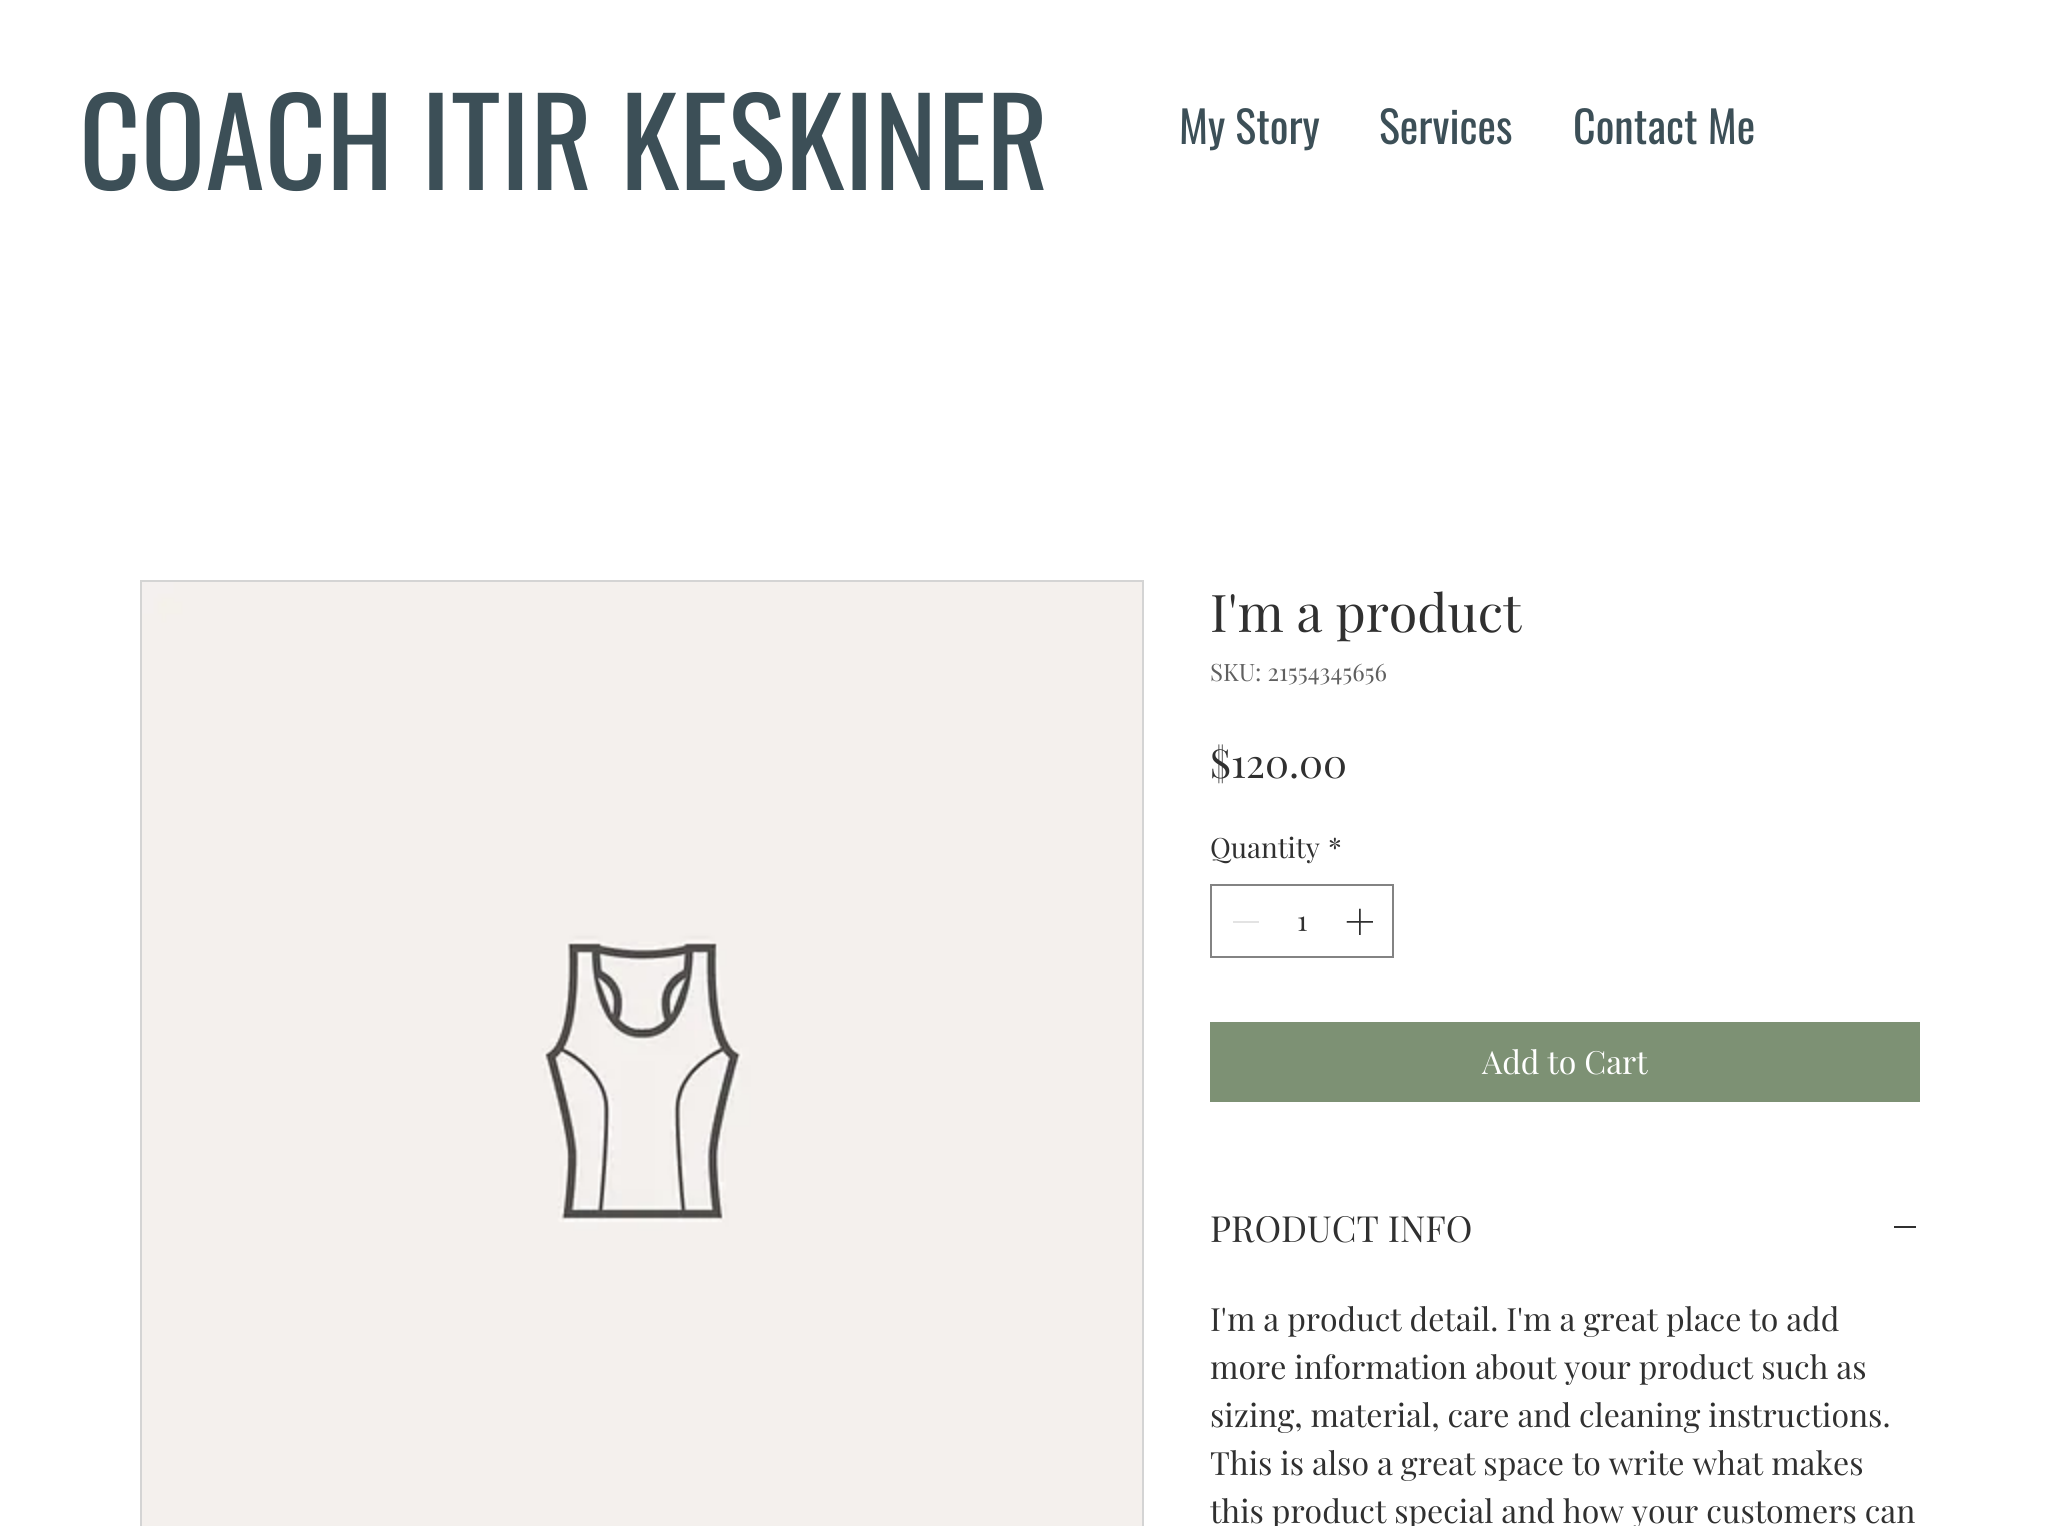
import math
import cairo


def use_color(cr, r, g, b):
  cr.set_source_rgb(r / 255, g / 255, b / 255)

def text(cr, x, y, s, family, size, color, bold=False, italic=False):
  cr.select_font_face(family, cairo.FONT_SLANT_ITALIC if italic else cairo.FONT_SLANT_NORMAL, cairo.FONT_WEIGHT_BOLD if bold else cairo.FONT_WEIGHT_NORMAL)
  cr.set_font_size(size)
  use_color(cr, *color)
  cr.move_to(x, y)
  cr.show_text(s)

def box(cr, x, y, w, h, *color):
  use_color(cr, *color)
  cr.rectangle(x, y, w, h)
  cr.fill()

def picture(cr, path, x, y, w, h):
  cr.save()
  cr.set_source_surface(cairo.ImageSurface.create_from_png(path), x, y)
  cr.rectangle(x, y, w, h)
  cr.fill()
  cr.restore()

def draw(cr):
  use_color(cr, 255, 255, 255)
  cr.paint()
  cr.rectangle(141, 581, 1002, 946)
  use_color(cr, 212, 212, 212)
  cr.stroke()
  picture(cr, "img_01.png", 142, 582, 1000, 944)
  cr.rectangle(1211, 885, 182, 72)
  use_color(cr, 131, 131, 131)
  cr.stroke()
  box(cr, 1233, 921, 26, 2, 227, 227, 227)
  picture(cr, "img_02.png", 1346, 908, 27, 27)
  box(cr, 1210, 1022, 710, 80, 125, 145, 116)
  box(cr, 1894, 1226, 22, 2, 48, 48, 48)
  text(cr, 79, 190, "COACH ITIR KESKINER", "Oswald", 120, (60, 79, 87))
  text(cr, 1179, 144, "My Story", "Oswald", 44, (60, 79, 87))
  text(cr, 1379, 144, "Services", "Oswald", 44, (60, 79, 87))
  text(cr, 1573, 144, "Contact Me", "Oswald", 44, (60, 79, 87))
  text(cr, 1210, 632, "I'm a product", "Playfair Display", 52, (48, 48, 48))
  text(cr, 1210, 681, "SKU: 21554345656", "Playfair Display", 24, (96, 96, 96))
  text(cr, 1210, 778, "$120.00", "Playfair Display", 40, (48, 48, 48))
  text(cr, 1210, 858, "Quantity", "Playfair Display", 28, (48, 48, 48))
  text(cr, 1328, 858, "*", "Playfair Display", 28, (48, 48, 48))
  text(cr, 1297, 931, "1", "Playfair Display", 28, (48, 48, 48))
  text(cr, 1482, 1074, "Add to Cart", "Playfair Display", 32, (255, 255, 255))
  text(cr, 1210, 1242, "PRODUCT INFO", "Playfair Display", 36, (48, 48, 48))
  text(cr, 1210, 1331, "I'm a product detail. I'm a great place to add", "Playfair Display", 32, (48, 48, 48))
  text(cr, 1210, 1379, "more information about your product such as", "Playfair Display", 32, (48, 48, 48))
  text(cr, 1210, 1427, "sizing, material, care and cleaning instructions.", "Playfair Display", 32, (48, 48, 48))
  text(cr, 1210, 1475, "This is also a great space to write what makes", "Playfair Display", 32, (48, 48, 48))
  text(cr, 1210, 1523, "this product special and how your customers can", "Playfair Display", 32, (48, 48, 48))


surface = cairo.ImageSurface(cairo.FORMAT_RGB24, 2060, 1526)
cr = cairo.Context(surface)
options = cairo.FontOptions()
options.set_hint_metrics(cairo.HINT_METRICS_OFF)
options.set_hint_style(cairo.HINT_STYLE_NONE)
cr.set_font_options(options)
cr.set_miter_limit(4)
draw(cr)
surface.write_to_png("out.png")
